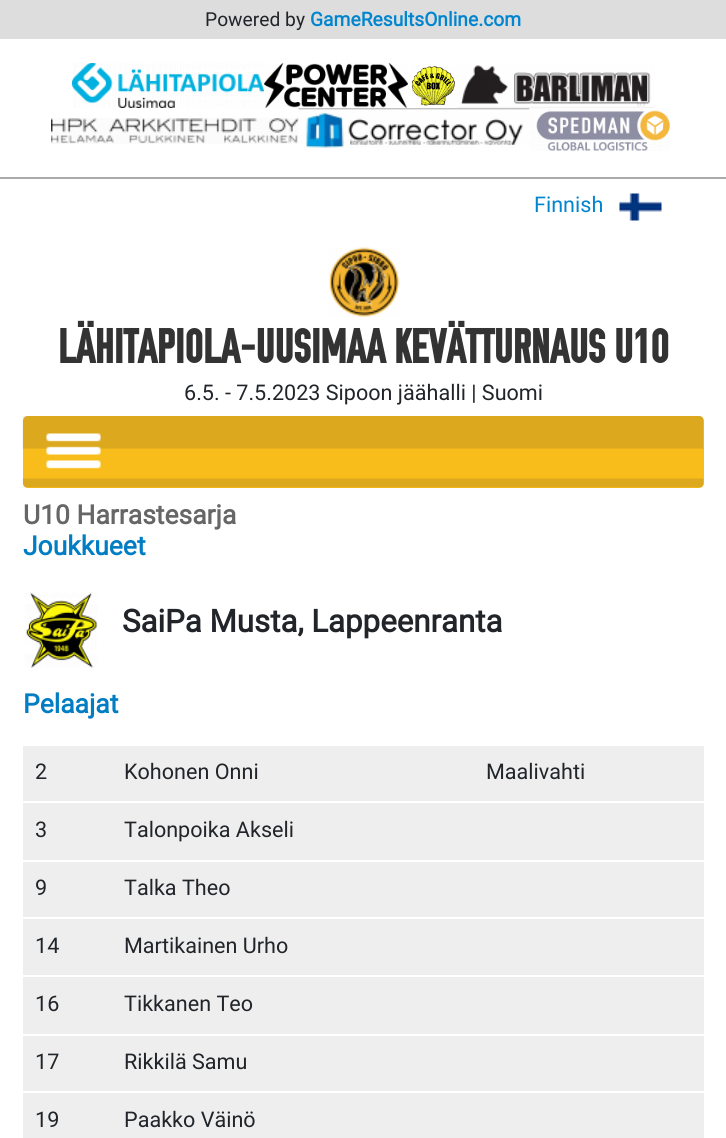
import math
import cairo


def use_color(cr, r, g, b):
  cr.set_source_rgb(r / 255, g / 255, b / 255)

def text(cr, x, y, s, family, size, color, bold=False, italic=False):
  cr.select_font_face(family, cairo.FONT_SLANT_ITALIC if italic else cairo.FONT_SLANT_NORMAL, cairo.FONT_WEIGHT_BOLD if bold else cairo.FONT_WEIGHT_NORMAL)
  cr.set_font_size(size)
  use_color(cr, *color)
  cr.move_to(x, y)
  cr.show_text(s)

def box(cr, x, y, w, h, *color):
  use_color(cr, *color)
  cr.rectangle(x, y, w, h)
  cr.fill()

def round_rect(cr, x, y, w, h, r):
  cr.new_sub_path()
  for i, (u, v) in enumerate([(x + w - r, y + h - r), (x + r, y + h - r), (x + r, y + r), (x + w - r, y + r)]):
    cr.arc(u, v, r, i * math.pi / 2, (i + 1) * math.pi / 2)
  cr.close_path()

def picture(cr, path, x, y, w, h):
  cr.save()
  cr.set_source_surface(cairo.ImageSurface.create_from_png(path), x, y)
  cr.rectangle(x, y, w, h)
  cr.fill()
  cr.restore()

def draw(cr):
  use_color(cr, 255, 255, 255)
  cr.paint()
  box(cr, 0, 0, 726, 39, 221, 221, 221)
  box(cr, 0, 177, 726, 2, 170, 170, 170)
  picture(cr, "img_01.png", 72, 63, 192, 45)
  picture(cr, "img_02.png", 264, 63, 144, 45)
  picture(cr, "img_03.png", 411, 66, 44, 40)
  picture(cr, "img_04.png", 457, 65, 197, 43)
  picture(cr, "img_05.png", 51, 118, 248, 26)
  picture(cr, "img_06.png", 298, 108, 232, 40)
  picture(cr, "img_07.png", 529, 108, 141, 43)
  picture(cr, "img_08.png", 619, 193, 43, 28)
  picture(cr, "img_09.png", 329, 247, 71, 70)
  use_color(cr, 248, 189, 27)
  round_rect(cr, 23, 416, 681, 72, 5)
  cr.fill()
  picture(cr, "img_10.png", 22, 416, 682, 72)
  picture(cr, "img_11.png", 46, 433, 55, 36)
  picture(cr, "img_12.png", 25, 592, 73, 76)
  box(cr, 23, 746, 681, 55, 238, 238, 238)
  box(cr, 23, 803, 681, 57, 238, 238, 238)
  box(cr, 23, 862, 681, 55, 238, 238, 238)
  box(cr, 23, 919, 681, 56, 238, 238, 238)
  box(cr, 23, 977, 681, 57, 238, 238, 238)
  box(cr, 23, 1036, 681, 55, 238, 238, 238)
  box(cr, 23, 1093, 681, 45, 238, 238, 238)
  text(cr, 205, 26, "Powered by", "Roboto", 19.25, (33, 37, 41))
  text(cr, 310, 26, "GameResultsOnline.com", "Roboto", 19.25, (2, 133, 207), bold=True)
  text(cr, 534, 212, "Finnish", "Roboto", 21.6, (2, 133, 207))
  text(cr, 58, 363, "LÄHITAPIOLA-UUSIMAA KEVÄTTURNAUS U10", "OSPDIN", 48, (51, 51, 51), bold=True)
  text(cr, 184, 400, "6.5. - 7.5.2023 Sipoon jäähalli | Suomi", "Roboto", 21.6, (33, 37, 41))
  text(cr, 23, 524, "U10 Harrastesarja", "Roboto", 26.5, (102, 102, 102), bold=True)
  text(cr, 23, 555, "Joukkueet", "Roboto", 26.5, (1, 125, 196), bold=True)
  text(cr, 122, 632, "SaiPa Musta, Lappeenranta", "Roboto", 31.25, (33, 37, 41), bold=True)
  text(cr, 23, 713, "Pelaajat", "Roboto", 26.5, (1, 125, 196), bold=True)
  text(cr, 35, 779, "2", "Roboto", 21.6, (33, 37, 41))
  text(cr, 124, 779, "Kohonen Onni", "Roboto", 21.6, (33, 37, 41))
  text(cr, 486, 779, "Maalivahti", "Roboto", 21.6, (33, 37, 41))
  text(cr, 35, 837, "3", "Roboto", 21.6, (33, 37, 41))
  text(cr, 124, 837, "Talonpoika Akseli", "Roboto", 21.6, (33, 37, 41))
  text(cr, 35, 895, "9", "Roboto", 21.6, (33, 37, 41))
  text(cr, 124, 895, "Talka Theo", "Roboto", 21.6, (33, 37, 41))
  text(cr, 35, 953, "14", "Roboto", 21.6, (33, 37, 41))
  text(cr, 124, 953, "Martikainen Urho", "Roboto", 21.6, (33, 37, 41))
  text(cr, 35, 1011, "16", "Roboto", 21.6, (33, 37, 41))
  text(cr, 124, 1011, "Tikkanen Teo", "Roboto", 21.6, (33, 37, 41))
  text(cr, 35, 1069, "17", "Roboto", 21.6, (33, 37, 41))
  text(cr, 124, 1069, "Rikkilä Samu", "Roboto", 21.6, (33, 37, 41))
  text(cr, 35, 1127, "19", "Roboto", 21.6, (33, 37, 41))
  text(cr, 124, 1127, "Paakko Väinö", "Roboto", 21.6, (33, 37, 41))


surface = cairo.ImageSurface(cairo.FORMAT_RGB24, 726, 1138)
cr = cairo.Context(surface)
options = cairo.FontOptions()
options.set_hint_metrics(cairo.HINT_METRICS_OFF)
options.set_hint_style(cairo.HINT_STYLE_NONE)
cr.set_font_options(options)
cr.set_miter_limit(4)
draw(cr)
surface.write_to_png("out.png")
